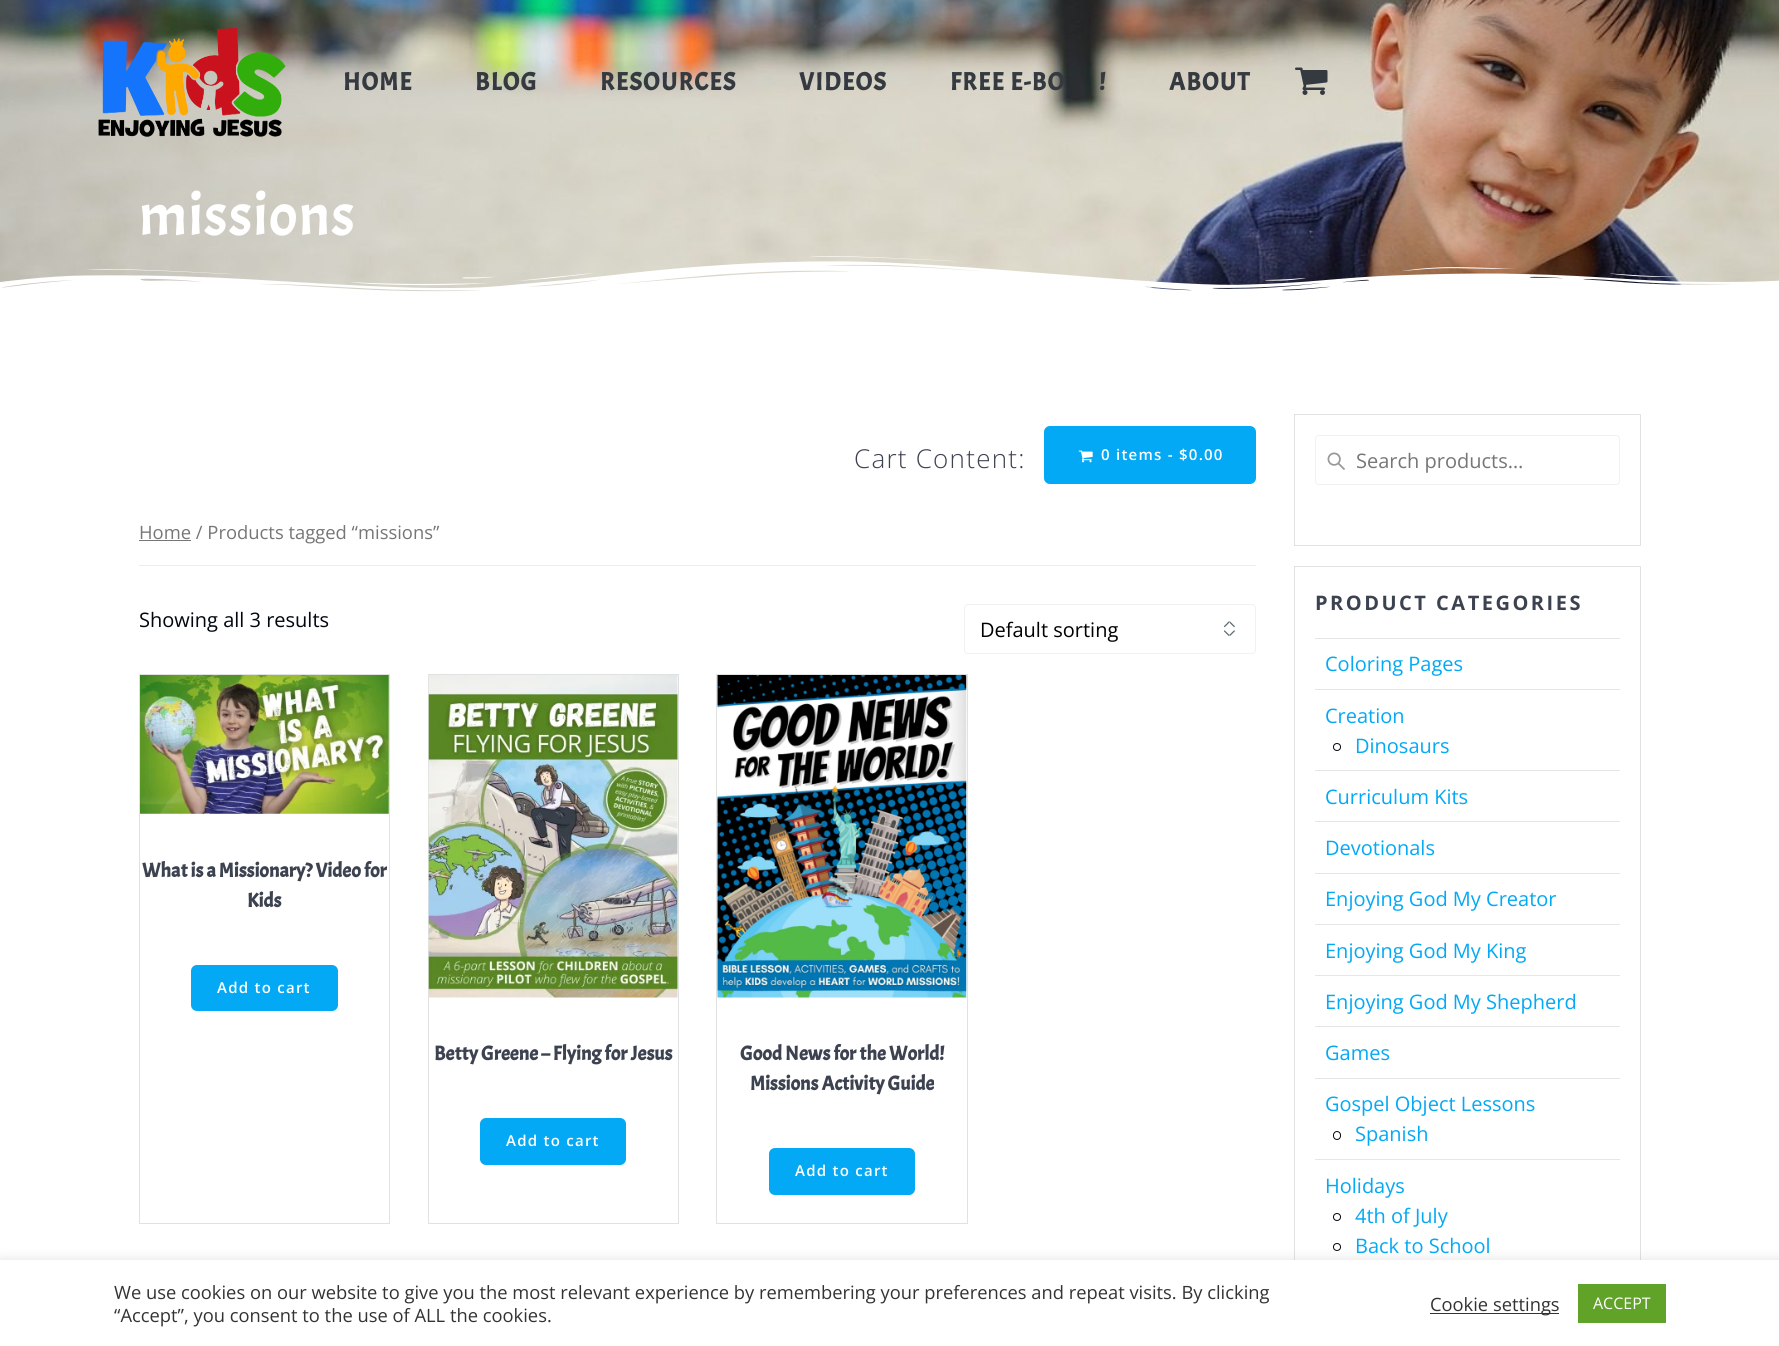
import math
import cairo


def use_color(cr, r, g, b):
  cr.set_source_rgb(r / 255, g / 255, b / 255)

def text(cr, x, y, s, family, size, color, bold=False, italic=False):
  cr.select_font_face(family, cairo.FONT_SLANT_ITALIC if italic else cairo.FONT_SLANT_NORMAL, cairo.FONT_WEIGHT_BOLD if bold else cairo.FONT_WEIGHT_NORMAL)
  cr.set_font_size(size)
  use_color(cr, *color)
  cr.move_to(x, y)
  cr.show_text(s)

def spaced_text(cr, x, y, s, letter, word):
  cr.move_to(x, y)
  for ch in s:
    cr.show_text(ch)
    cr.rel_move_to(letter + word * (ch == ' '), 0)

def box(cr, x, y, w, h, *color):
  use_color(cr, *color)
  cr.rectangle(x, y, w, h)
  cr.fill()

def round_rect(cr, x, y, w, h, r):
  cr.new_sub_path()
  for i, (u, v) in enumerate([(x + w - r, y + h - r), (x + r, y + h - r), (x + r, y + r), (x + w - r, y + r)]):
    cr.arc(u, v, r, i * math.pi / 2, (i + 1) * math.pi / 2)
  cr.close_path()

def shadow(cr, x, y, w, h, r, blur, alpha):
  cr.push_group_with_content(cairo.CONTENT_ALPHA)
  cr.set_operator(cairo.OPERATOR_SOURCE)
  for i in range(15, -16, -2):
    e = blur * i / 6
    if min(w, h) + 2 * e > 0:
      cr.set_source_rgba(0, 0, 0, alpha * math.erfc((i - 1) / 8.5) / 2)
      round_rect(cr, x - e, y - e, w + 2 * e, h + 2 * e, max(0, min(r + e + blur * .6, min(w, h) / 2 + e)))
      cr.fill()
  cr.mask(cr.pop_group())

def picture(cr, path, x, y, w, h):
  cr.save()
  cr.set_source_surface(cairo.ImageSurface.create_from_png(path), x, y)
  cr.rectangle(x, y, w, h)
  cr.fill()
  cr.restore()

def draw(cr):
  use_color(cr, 255, 255, 255)
  cr.paint()
  picture(cr, "img_03.png", 0, 0, 1779, 292)
  picture(cr, "img_01.png", 98, 28, 188, 109)
  picture(cr, "img_02.png", 1295, 67, 33, 28)
  picture(cr, "img_04.png", 0, 256, 1779, 38)
  box(cr, 139, 565, 1117, 1, 237, 237, 237)
  use_color(cr, 3, 169, 244)
  round_rect(cr, 1045.5, 427.5, 209, 55, 4.5)
  cr.fill_preserve()
  cr.set_line_width(3)
  cr.stroke()
  picture(cr, "img_05.png", 1078, 450, 15, 13)
  box(cr, 139, 540, 52, 1, 118, 118, 118)
  picture(cr, "img_06.png", 1224, 621, 11, 15)
  round_rect(cr, 964.5, 604.5, 291, 49, 3.5)
  use_color(cr, 241, 241, 241)
  cr.set_line_width(1)
  cr.stroke()
  cr.rectangle(139.5, 674.5, 250, 549)
  use_color(cr, 224, 225, 225)
  cr.stroke()
  picture(cr, "img_07.png", 140, 675, 249, 139)
  use_color(cr, 3, 169, 244)
  round_rect(cr, 192.5, 966.5, 144, 43, 4.5)
  cr.fill_preserve()
  cr.set_line_width(3)
  cr.stroke()
  cr.rectangle(428.5, 674.5, 250, 549)
  use_color(cr, 224, 225, 225)
  cr.set_line_width(1)
  cr.stroke()
  picture(cr, "img_08.png", 428, 675, 250, 323)
  use_color(cr, 3, 169, 244)
  round_rect(cr, 481.5, 1119.5, 143, 44, 4.5)
  cr.fill_preserve()
  cr.set_line_width(3)
  cr.stroke()
  cr.rectangle(716.5, 674.5, 251, 549)
  use_color(cr, 224, 225, 225)
  cr.set_line_width(1)
  cr.stroke()
  picture(cr, "img_09.png", 717, 675, 250, 323)
  use_color(cr, 3, 169, 244)
  round_rect(cr, 770.5, 1149.5, 143, 44, 4.5)
  cr.fill_preserve()
  cr.set_line_width(3)
  cr.stroke()
  cr.rectangle(1294.5, 414.5, 346, 131)
  use_color(cr, 224, 225, 225)
  cr.set_line_width(1)
  cr.stroke()
  picture(cr, "img_10.png", 1327, 452, 18, 18)
  round_rect(cr, 1315.5, 435.5, 304, 49, 3.5)
  use_color(cr, 241, 241, 241)
  cr.stroke()
  cr.rectangle(1294.5, 566.5, 346, 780)
  use_color(cr, 224, 225, 225)
  cr.stroke()
  box(cr, 1315, 638, 305, 1, 230, 230, 230)
  box(cr, 1315, 689, 305, 1, 230, 230, 230)
  cr.arc(1337, 747, 3.5, 0, 2 * math.pi)
  use_color(cr, 1, 7, 14)
  cr.stroke()
  box(cr, 1315, 770, 305, 1, 230, 230, 230)
  box(cr, 1315, 821, 305, 1, 230, 230, 230)
  box(cr, 1315, 873, 305, 1, 230, 230, 230)
  box(cr, 1315, 924, 305, 1, 230, 230, 230)
  box(cr, 1315, 975, 305, 1, 230, 230, 230)
  box(cr, 1315, 1026, 305, 1, 230, 230, 230)
  box(cr, 1315, 1078, 305, 1, 230, 230, 230)
  round_rect(cr, 1333.5, 1131.5, 7, 8, 3.5)
  use_color(cr, 1, 7, 14)
  cr.stroke()
  box(cr, 1315, 1159, 305, 1, 230, 230, 230)
  cr.arc(1337, 1217, 3.5, 0, 2 * math.pi)
  use_color(cr, 1, 7, 14)
  cr.stroke()
  cr.arc(1337, 1247, 3.5, 0, 2 * math.pi)
  cr.stroke()
  use_color(cr, 172, 171, 171)
  shadow(cr, 0, 1259, 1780, 86, 0, 6, 0.3)
  box(cr, 0, 1260, 1779, 86, 255, 255, 255)
  box(cr, 1430, 1313, 129, 1, 51, 51, 51)
  box(cr, 1578, 1284, 88, 39, 97, 162, 41)
  cr.select_font_face("Acme", cairo.FONT_SLANT_NORMAL, cairo.FONT_WEIGHT_BOLD)
  cr.set_font_size(25)
  use_color(cr, 52, 58, 64)
  spaced_text(cr, 343, 90, "HOME", 1.25, 0)
  spaced_text(cr, 475, 90, "BLOG", 1.25, 0)
  spaced_text(cr, 600, 90, "RESOURCES", 1.25, 0)
  spaced_text(cr, 799, 90, "VIDEOS", 1.25, 0)
  spaced_text(cr, 950, 90, "FREE E-BO", 1.25, 0)
  spaced_text(cr, 1099, 90, "!", 1.25, 0)
  spaced_text(cr, 1169, 90, "ABOUT", 1.25, 0)
  cr.select_font_face("Acme")
  cr.set_font_size(60)
  use_color(cr, 255, 255, 255)
  spaced_text(cr, 139, 235, "missions", 1, 0)
  cr.select_font_face("Open Sans Light")
  cr.set_font_size(26)
  use_color(cr, 60, 66, 79)
  spaced_text(cr, 854, 468, "Cart Content:", 1.25, 0)
  cr.select_font_face("Open Sans SemiBold")
  cr.set_font_size(15)
  use_color(cr, 255, 255, 255)
  spaced_text(cr, 1101, 460, "0 items - $0.00", 1.25, 0)
  text(cr, 139, 539, "Home / Products tagged “missions”", "Open Sans", 18.4, (118, 118, 118))
  text(cr, 139, 627, "Showing all 3 results", "Open Sans", 20, (1, 7, 14))
  text(cr, 980, 637, "Default sorting", "Open Sans", 20, (0, 0, 0))
  text(cr, 142, 877, "What is a Missionary? Video for", "Acme", 20, (60, 66, 79), bold=True)
  text(cr, 247, 907, "Kids", "Acme", 20, (60, 66, 79), bold=True)
  cr.select_font_face("Open Sans SemiBold")
  cr.set_font_size(15)
  use_color(cr, 255, 255, 255)
  spaced_text(cr, 217, 993, "Add to cart", 1.25, 0)
  text(cr, 434, 1060, "Betty Greene – Flying for Jesus", "Acme", 20, (60, 66, 79), bold=True)
  cr.select_font_face("Open Sans SemiBold")
  cr.set_font_size(15)
  use_color(cr, 255, 255, 255)
  spaced_text(cr, 506, 1146, "Add to cart", 1.25, 0)
  text(cr, 740, 1060, "Good News for the World!", "Acme", 20, (60, 66, 79), bold=True)
  text(cr, 750, 1090, "Missions Activity Guide", "Acme", 20, (60, 66, 79), bold=True)
  cr.select_font_face("Open Sans SemiBold")
  cr.set_font_size(15)
  use_color(cr, 255, 255, 255)
  spaced_text(cr, 795, 1176, "Add to cart", 1.25, 0)
  text(cr, 1356, 468, "Search products…", "Open Sans", 20, (118, 118, 118))
  cr.select_font_face("Open Sans", cairo.FONT_SLANT_NORMAL, cairo.FONT_WEIGHT_BOLD)
  use_color(cr, 60, 66, 79)
  spaced_text(cr, 1315, 610, "PRODUCT CATEGORIES", 2.5, 0)
  text(cr, 1325, 671, "Coloring Pages", "Open Sans", 20, (3, 169, 244))
  text(cr, 1325, 723, "Creation", "Open Sans", 20, (3, 169, 244))
  text(cr, 1355, 753, "Dinosaurs", "Open Sans", 20, (3, 169, 244))
  text(cr, 1325, 804, "Curriculum Kits", "Open Sans", 20, (3, 169, 244))
  text(cr, 1325, 855, "Devotionals", "Open Sans", 20, (3, 169, 244))
  text(cr, 1325, 906, "Enjoying God My Creator", "Open Sans", 20, (3, 169, 244))
  text(cr, 1325, 958, "Enjoying God My King", "Open Sans", 20, (3, 169, 244))
  text(cr, 1325, 1009, "Enjoying God My Shepherd", "Open Sans", 20, (3, 169, 244))
  text(cr, 1325, 1060, "Games", "Open Sans", 20, (3, 169, 244))
  text(cr, 1325, 1111, "Gospel Object Lessons", "Open Sans", 20, (3, 169, 244))
  text(cr, 1355, 1141, "Spanish", "Open Sans", 20, (3, 169, 244))
  text(cr, 1325, 1193, "Holidays", "Open Sans", 20, (3, 169, 244))
  text(cr, 1355, 1223, "4th of July", "Open Sans", 20, (3, 169, 244))
  text(cr, 1355, 1253, "Back to School", "Open Sans", 20, (3, 169, 244))
  text(cr, 114, 1299, "We use cookies on our website to give you the most relevant experience by remembering your preferences and repeat visits. By clicking", "Open Sans", 18.33, (51, 51, 51))
  text(cr, 114, 1322, "“Accept”, you consent to the use of ALL the cookies.", "Open Sans", 18.33, (51, 51, 51))
  text(cr, 1430, 1311, "Cookie settings", "Open Sans", 18.33, (51, 51, 51))
  text(cr, 1593, 1309, "ACCEPT", "Open Sans", 16, (255, 255, 255))


surface = cairo.ImageSurface(cairo.FORMAT_RGB24, 1779, 1346)
cr = cairo.Context(surface)
options = cairo.FontOptions()
options.set_hint_metrics(cairo.HINT_METRICS_OFF)
options.set_hint_style(cairo.HINT_STYLE_NONE)
cr.set_font_options(options)
cr.set_miter_limit(4)
draw(cr)
surface.write_to_png("out.png")
